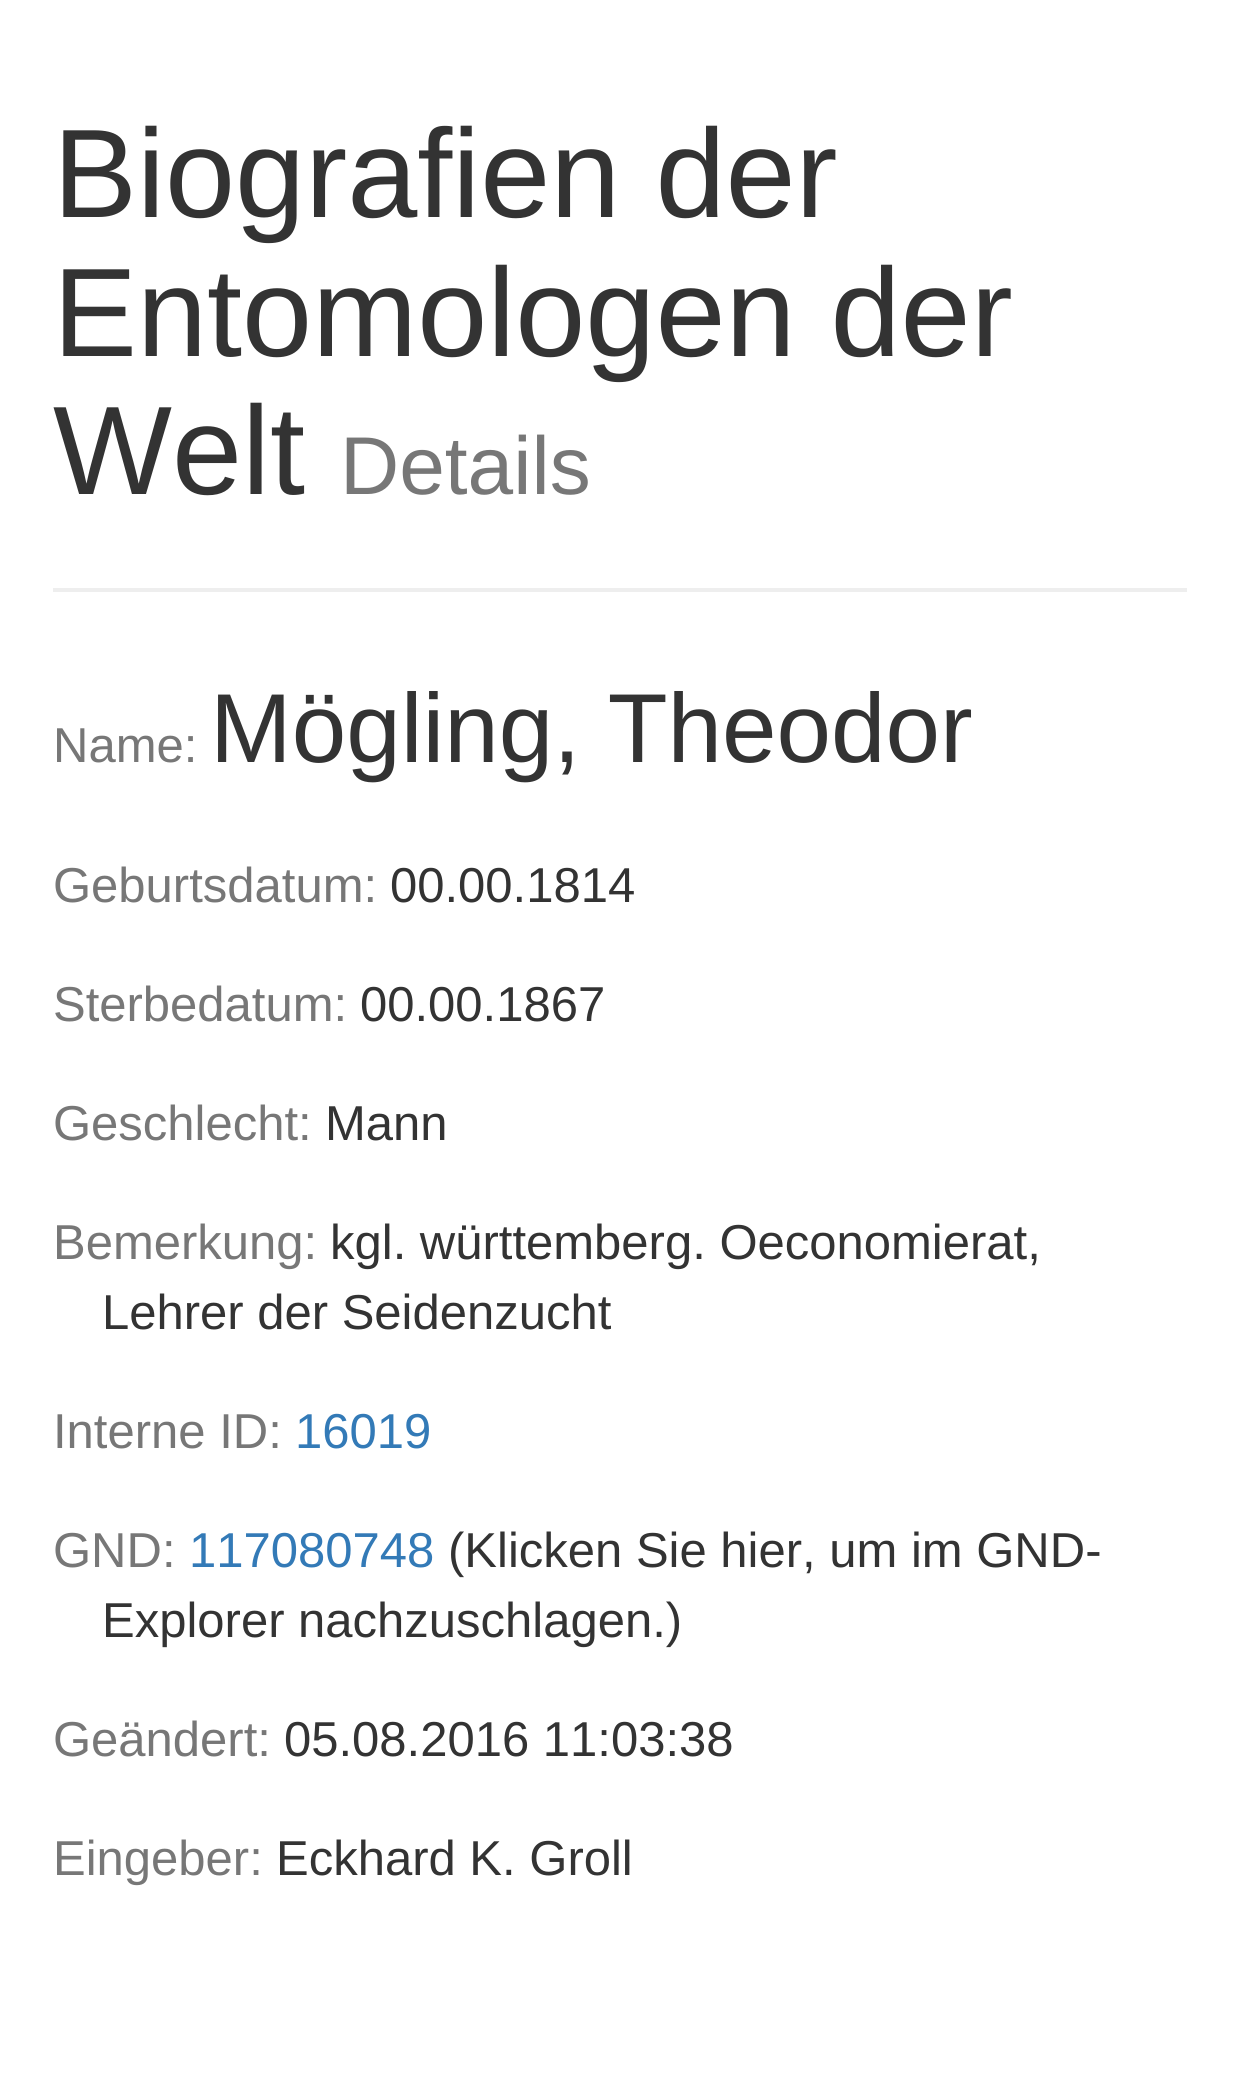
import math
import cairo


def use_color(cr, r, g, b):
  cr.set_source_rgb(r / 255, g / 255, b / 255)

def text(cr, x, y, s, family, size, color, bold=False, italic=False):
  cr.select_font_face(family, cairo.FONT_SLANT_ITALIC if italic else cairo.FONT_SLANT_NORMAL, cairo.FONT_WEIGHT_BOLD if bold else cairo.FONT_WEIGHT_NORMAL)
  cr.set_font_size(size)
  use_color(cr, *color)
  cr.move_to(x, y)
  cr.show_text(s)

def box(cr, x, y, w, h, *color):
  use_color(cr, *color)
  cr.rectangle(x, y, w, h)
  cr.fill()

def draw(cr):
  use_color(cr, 255, 255, 255)
  cr.paint()
  box(cr, 53, 588, 1134, 4, 238, 238, 238)
  text(cr, 53, 217, "Biografien der", "Liberation Sans", 126, (51, 51, 51))
  text(cr, 53, 356, "Entomologen der", "Liberation Sans", 126, (51, 51, 51))
  text(cr, 53, 494, "Welt", "Liberation Sans", 126, (51, 51, 51))
  text(cr, 340, 494, "Details", "Liberation Sans", 82, (119, 119, 119))
  text(cr, 53, 762, "Name:", "Liberation Sans", 49, (119, 119, 119))
  text(cr, 210, 762, "Mögling, Theodor", "Liberation Sans", 98, (51, 51, 51))
  text(cr, 53, 902, "Geburtsdatum:", "Liberation Sans", 49, (119, 119, 119))
  text(cr, 390, 902, "00.00.1814", "Liberation Sans", 49, (51, 51, 51))
  text(cr, 53, 1021, "Sterbedatum:", "Liberation Sans", 49, (119, 119, 119))
  text(cr, 360, 1021, "00.00.1867", "Liberation Sans", 49, (51, 51, 51))
  text(cr, 53, 1140, "Geschlecht:", "Liberation Sans", 49, (119, 119, 119))
  text(cr, 325, 1140, "Mann", "Liberation Sans", 49, (51, 51, 51))
  text(cr, 53, 1259, "Bemerkung:", "Liberation Sans", 49, (119, 119, 119))
  text(cr, 330, 1259, "kgl. württemberg. Oeconomierat,", "Liberation Sans", 49, (51, 51, 51))
  text(cr, 102, 1329, "Lehrer der Seidenzucht", "Liberation Sans", 49, (51, 51, 51))
  text(cr, 53, 1448, "Interne ID:", "Liberation Sans", 49, (119, 119, 119))
  text(cr, 295, 1448, "16019", "Liberation Sans", 49, (51, 122, 183))
  text(cr, 53, 1567, "GND:", "Liberation Sans", 49, (119, 119, 119))
  text(cr, 189, 1567, "117080748", "Liberation Sans", 49, (51, 122, 183))
  text(cr, 448, 1567, "(Klicken Sie hier, um im GND-", "Liberation Sans", 49, (51, 51, 51))
  text(cr, 102, 1637, "Explorer nachzuschlagen.)", "Liberation Sans", 49, (51, 51, 51))
  text(cr, 53, 1756, "Geändert:", "Liberation Sans", 49, (119, 119, 119))
  text(cr, 284, 1756, "05.08.2016 11:03:38", "Liberation Sans", 49, (51, 51, 51))
  text(cr, 53, 1875, "Eingeber:", "Liberation Sans", 49, (119, 119, 119))
  text(cr, 276, 1875, "Eckhard K. Groll", "Liberation Sans", 49, (51, 51, 51))


surface = cairo.ImageSurface(cairo.FORMAT_RGB24, 1236, 2078)
cr = cairo.Context(surface)
options = cairo.FontOptions()
options.set_hint_metrics(cairo.HINT_METRICS_OFF)
options.set_hint_style(cairo.HINT_STYLE_NONE)
cr.set_font_options(options)
cr.set_miter_limit(4)
draw(cr)
surface.write_to_png("out.png")
